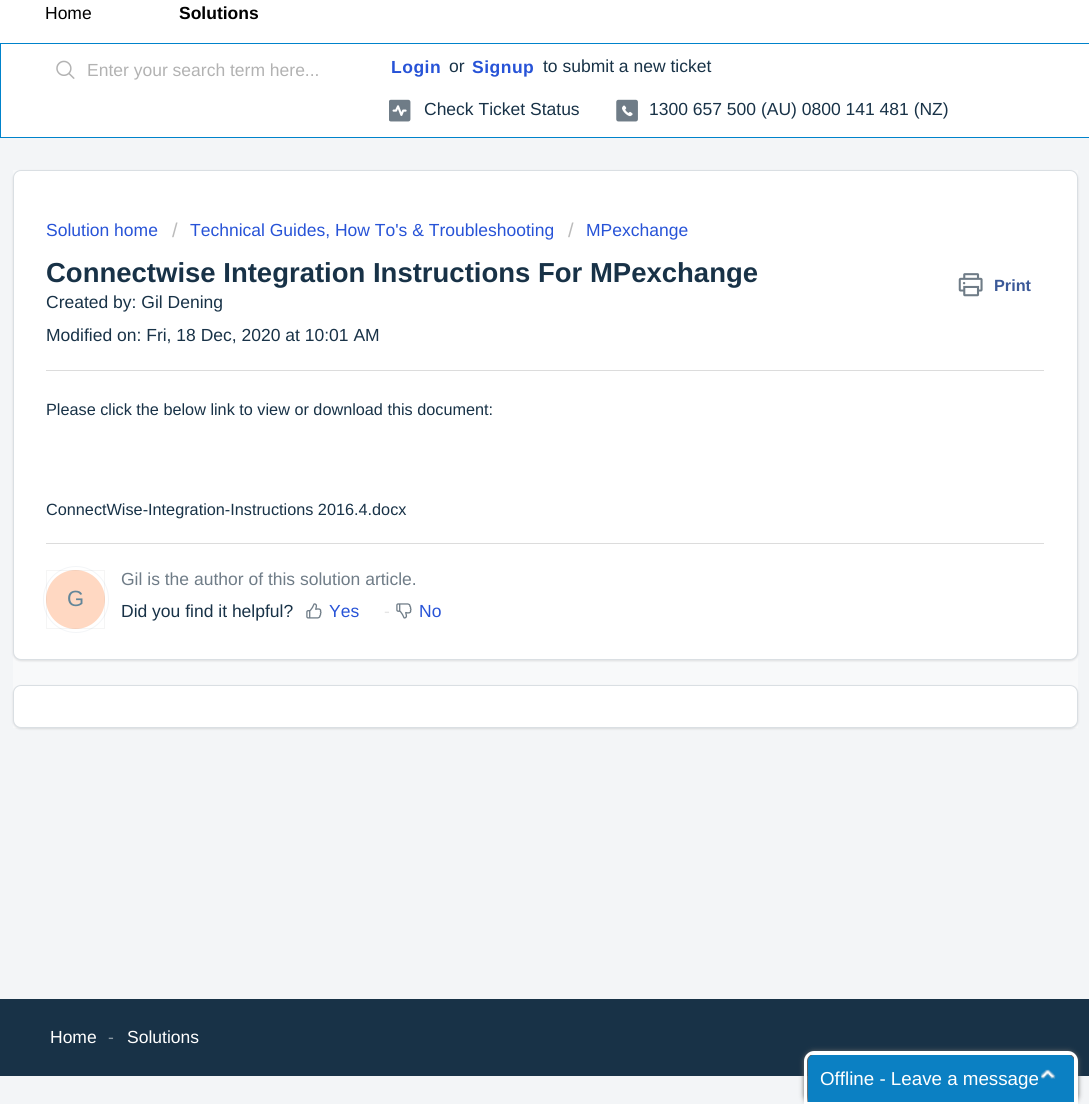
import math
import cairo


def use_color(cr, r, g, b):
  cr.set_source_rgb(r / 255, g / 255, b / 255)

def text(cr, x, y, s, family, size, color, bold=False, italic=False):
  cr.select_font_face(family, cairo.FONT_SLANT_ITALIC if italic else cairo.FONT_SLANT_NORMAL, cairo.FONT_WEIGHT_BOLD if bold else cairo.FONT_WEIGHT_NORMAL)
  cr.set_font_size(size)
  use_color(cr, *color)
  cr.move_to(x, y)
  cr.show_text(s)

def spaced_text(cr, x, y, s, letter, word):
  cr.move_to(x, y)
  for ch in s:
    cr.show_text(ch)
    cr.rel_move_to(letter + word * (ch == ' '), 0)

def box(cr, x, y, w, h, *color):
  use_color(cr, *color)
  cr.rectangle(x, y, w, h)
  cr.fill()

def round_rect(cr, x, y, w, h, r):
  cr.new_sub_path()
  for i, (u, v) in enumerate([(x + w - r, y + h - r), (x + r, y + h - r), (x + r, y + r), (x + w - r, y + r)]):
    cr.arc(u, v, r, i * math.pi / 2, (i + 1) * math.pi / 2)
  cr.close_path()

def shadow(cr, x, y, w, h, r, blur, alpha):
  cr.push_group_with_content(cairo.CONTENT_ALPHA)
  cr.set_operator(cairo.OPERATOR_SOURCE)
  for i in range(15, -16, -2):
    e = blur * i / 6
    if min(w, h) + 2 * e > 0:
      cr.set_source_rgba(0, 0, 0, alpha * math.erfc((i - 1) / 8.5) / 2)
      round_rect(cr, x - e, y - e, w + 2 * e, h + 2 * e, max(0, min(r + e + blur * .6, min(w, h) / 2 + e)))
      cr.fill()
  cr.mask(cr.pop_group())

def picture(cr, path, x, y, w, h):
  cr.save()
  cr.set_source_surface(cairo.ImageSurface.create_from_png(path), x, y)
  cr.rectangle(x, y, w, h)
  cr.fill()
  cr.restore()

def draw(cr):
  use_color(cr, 243, 245, 247)
  cr.paint()
  box(cr, 0, 0, 1089, 43, 255, 255, 255)
  cr.rectangle(0.5, 43.5, 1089, 94)
  cr.fill_preserve()
  use_color(cr, 0, 131, 203)
  cr.set_line_width(1)
  cr.stroke()
  picture(cr, "img_01.png", 56, 60, 19, 19)
  picture(cr, "img_02.png", 389, 99, 22, 23)
  picture(cr, "img_03.png", 616, 99, 22, 23)
  box(cr, 13, 170, 1065, 558, 248, 249, 250)
  use_color(cr, 63, 63, 68)
  shadow(cr, 13, 171, 1065, 490, 8, 1, 0.15)
  use_color(cr, 255, 255, 255)
  round_rect(cr, 13.5, 170.5, 1064, 489, 7.5)
  cr.fill_preserve()
  use_color(cr, 218, 223, 227)
  cr.stroke()
  picture(cr, "img_04.png", 958, 273, 25, 24)
  box(cr, 46, 370, 998, 1, 220, 220, 220)
  box(cr, 46, 543, 998, 1, 220, 220, 220)
  round_rect(cr, 43.5, 566.5, 65, 66, 32.5)
  use_color(cr, 243, 245, 247)
  cr.stroke()
  use_color(cr, 255, 216, 194)
  cr.arc(75.5, 599.5, 29.5, 0, 2 * math.pi)
  cr.fill()
  cr.rectangle(46.5, 570.5, 58, 58)
  cr.set_source_rgba(0, 0, 0, 0.04)
  cr.stroke()
  picture(cr, "img_05.png", 306, 603, 16, 16)
  picture(cr, "img_06.png", 396, 603, 16, 16)
  use_color(cr, 63, 63, 68)
  shadow(cr, 13, 686, 1065, 43, 8, 1, 0.15)
  use_color(cr, 255, 255, 255)
  round_rect(cr, 13.5, 685.5, 1064, 42, 7.5)
  cr.fill_preserve()
  use_color(cr, 218, 223, 227)
  cr.stroke()
  box(cr, 0, 999, 1089, 77, 24, 50, 71)
  use_color(cr, 102, 102, 102)
  shadow(cr, 804, 1051, 274, 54, 10, 2.5, 1)
  use_color(cr, 11, 128, 195)
  cr.new_path()
  cr.move_to(814, 1055)
  cr.line_to(1068, 1055)
  cr.curve_to(1071.5, 1055, 1074, 1057.5, 1074, 1061)
  cr.line_to(1074, 1103)
  cr.line_to(808, 1103)
  cr.line_to(808, 1061)
  cr.curve_to(808, 1057.5, 810.5, 1055, 814, 1055)
  cr.close_path()
  cr.fill()
  picture(cr, "img_07.png", 1041, 1069, 15, 10)
  cr.new_path()
  cr.move_to(814, 1052.5)
  cr.line_to(1068, 1052.5)
  cr.curve_to(1072.5, 1052.5, 1076.5, 1056.5, 1076.5, 1061)
  cr.line_to(1076.5, 1103.5)
  cr.line_to(805.5, 1103.5)
  cr.line_to(805.5, 1061)
  cr.curve_to(805.5, 1056.5, 809.5, 1052.5, 814, 1052.5)
  cr.close_path()
  use_color(cr, 255, 255, 255)
  cr.set_line_width(3)
  cr.stroke()
  box(cr, 809, 1054, 264, 1, 255, 255, 255)
  box(cr, 1074, 1056, 1, 48, 255, 255, 255)
  text(cr, 45, 19, "Home", "Liberation Sans", 17.5, (0, 0, 0))
  text(cr, 179, 19, "Solutions", "Liberation Sans", 17.5, (0, 0, 0), bold=True)
  text(cr, 87, 76, "Enter your search term here...", "Liberation Sans", 17.5, (178, 178, 178))
  cr.select_font_face("Liberation Sans", cairo.FONT_SLANT_NORMAL, cairo.FONT_WEIGHT_BOLD)
  use_color(cr, 39, 83, 215)
  spaced_text(cr, 391, 73, "Login", 0.5, 0)
  text(cr, 449, 72, "or", "Liberation Sans", 17.5, (24, 50, 71))
  cr.select_font_face("Liberation Sans", cairo.FONT_SLANT_NORMAL, cairo.FONT_WEIGHT_BOLD)
  use_color(cr, 39, 83, 215)
  spaced_text(cr, 472, 73, "Signup", 0.5, 0)
  text(cr, 543, 72, "to submit a new ticket", "Liberation Sans", 17.5, (24, 50, 71))
  text(cr, 424, 115, "Check Ticket Status", "Liberation Sans", 17.5, (24, 50, 71))
  text(cr, 649, 115, "1300 657 500 (AU) 0800 141 481 (NZ)", "Liberation Sans", 17.5, (24, 50, 71))
  text(cr, 46, 236, "Solution home", "Liberation Sans", 17.5, (39, 83, 215))
  text(cr, 172, 237, "/", "Liberation Sans", 20, (187, 187, 187))
  text(cr, 190, 236, "Technical Guides, How To's & Troubleshooting", "Liberation Sans", 17.5, (39, 83, 215))
  text(cr, 568, 237, "/", "Liberation Sans", 20, (187, 187, 187))
  text(cr, 586, 236, "MPexchange", "Liberation Sans", 17.5, (39, 83, 215))
  text(cr, 46, 282, "Connectwise Integration Instructions For MPexchange", "Liberation Sans", 27.5, (24, 50, 71), bold=True)
  text(cr, 994, 291, "Print", "Liberation Sans", 16.25, (59, 89, 152), bold=True)
  text(cr, 46, 308, "Created by: Gil Dening", "Liberation Sans", 17.5, (24, 50, 71))
  text(cr, 46, 341, "Modified on: Fri, 18 Dec, 2020 at 10:01 AM", "Liberation Sans", 17.5, (24, 50, 71))
  text(cr, 46, 415, "Please click the below link to view or download this document:", "Liberation Sans", 16.25, (24, 50, 71))
  text(cr, 46, 515, "ConnectWise-Integration-Instructions 2016.4.docx", "Liberation Sans", 16.25, (24, 50, 71))
  text(cr, 121, 585, "Gil is the author of this solution article.", "Liberation Sans", 17.5, (111, 124, 135))
  text(cr, 67, 606, "G", "Liberation Sans", 22, (99, 134, 153))
  text(cr, 121, 617, "Did you find it helpful?", "Liberation Sans", 17.5, (24, 50, 71))
  text(cr, 329, 617, "Yes", "Liberation Sans", 17.5, (39, 83, 215))
  text(cr, 384, 617, "-", "Liberation Sans", 17.5, (229, 229, 229))
  text(cr, 419, 617, "No", "Liberation Sans", 17.5, (39, 83, 215))
  text(cr, 50, 1043, "Home", "Liberation Sans", 17.5, (255, 255, 255))
  text(cr, 108, 1043, "-", "Liberation Sans", 17.5, (140, 153, 163))
  text(cr, 127, 1043, "Solutions", "Liberation Sans", 17.5, (255, 255, 255))
  text(cr, 820, 1085, "Offline - Leave a message", "Liberation Sans", 18.75, (255, 255, 255))


surface = cairo.ImageSurface(cairo.FORMAT_RGB24, 1089, 1104)
cr = cairo.Context(surface)
options = cairo.FontOptions()
options.set_hint_metrics(cairo.HINT_METRICS_OFF)
options.set_hint_style(cairo.HINT_STYLE_NONE)
cr.set_font_options(options)
cr.set_miter_limit(4)
draw(cr)
surface.write_to_png("out.png")
